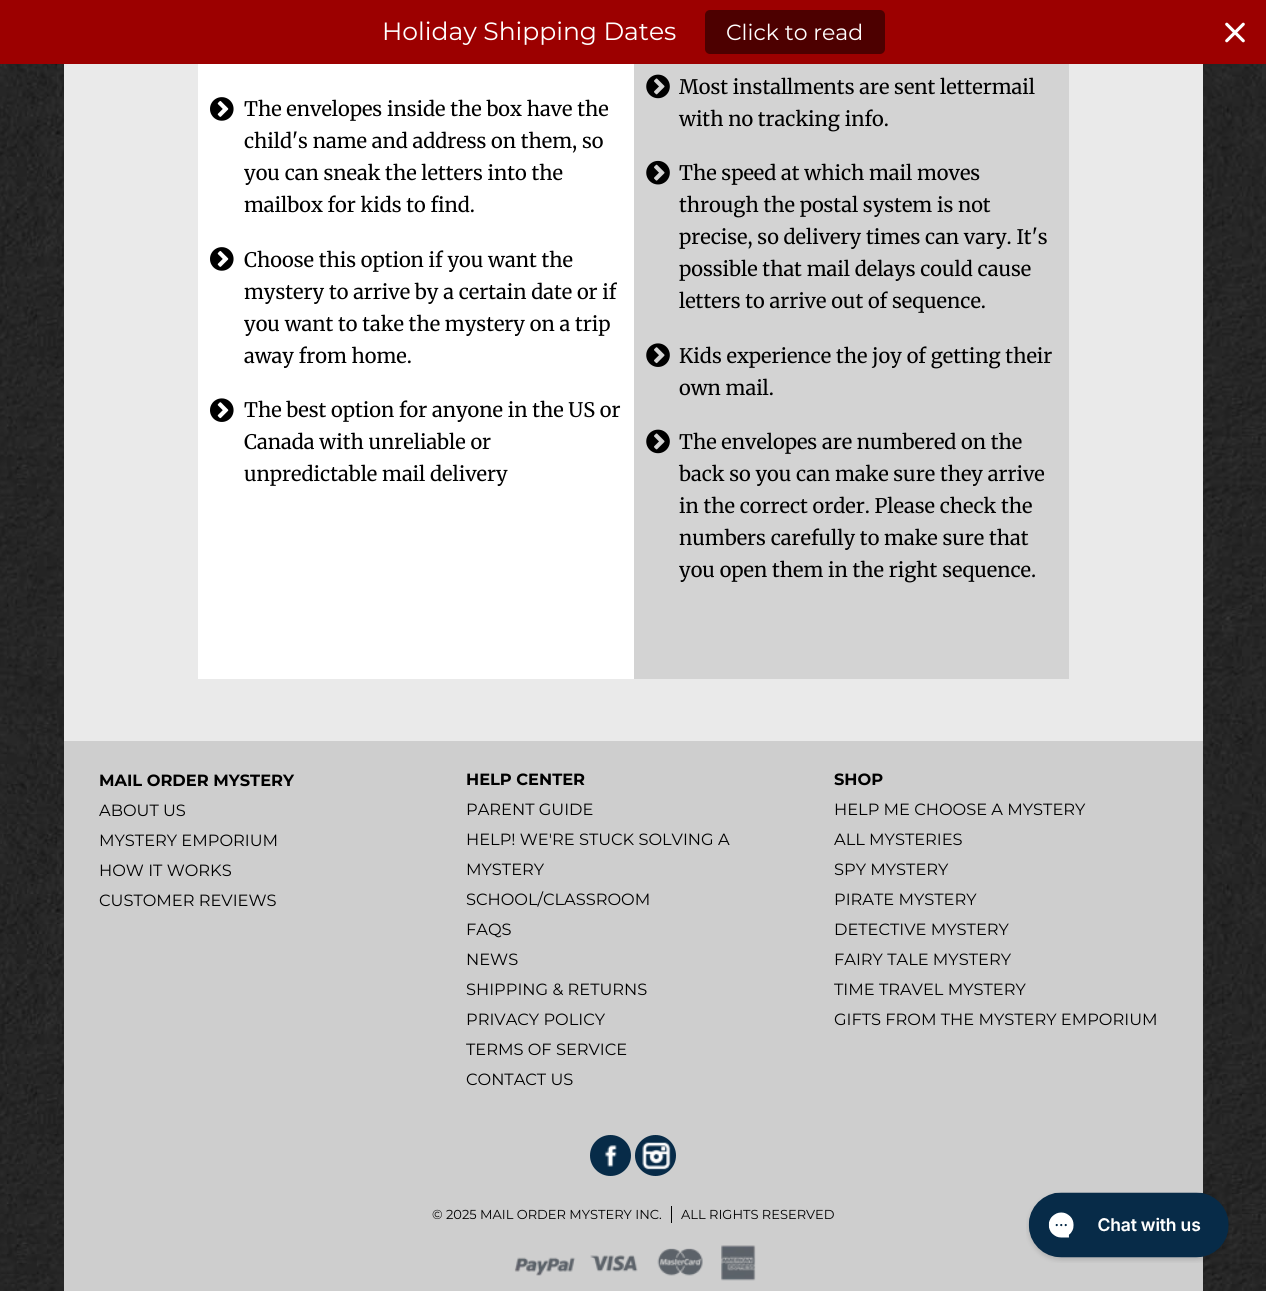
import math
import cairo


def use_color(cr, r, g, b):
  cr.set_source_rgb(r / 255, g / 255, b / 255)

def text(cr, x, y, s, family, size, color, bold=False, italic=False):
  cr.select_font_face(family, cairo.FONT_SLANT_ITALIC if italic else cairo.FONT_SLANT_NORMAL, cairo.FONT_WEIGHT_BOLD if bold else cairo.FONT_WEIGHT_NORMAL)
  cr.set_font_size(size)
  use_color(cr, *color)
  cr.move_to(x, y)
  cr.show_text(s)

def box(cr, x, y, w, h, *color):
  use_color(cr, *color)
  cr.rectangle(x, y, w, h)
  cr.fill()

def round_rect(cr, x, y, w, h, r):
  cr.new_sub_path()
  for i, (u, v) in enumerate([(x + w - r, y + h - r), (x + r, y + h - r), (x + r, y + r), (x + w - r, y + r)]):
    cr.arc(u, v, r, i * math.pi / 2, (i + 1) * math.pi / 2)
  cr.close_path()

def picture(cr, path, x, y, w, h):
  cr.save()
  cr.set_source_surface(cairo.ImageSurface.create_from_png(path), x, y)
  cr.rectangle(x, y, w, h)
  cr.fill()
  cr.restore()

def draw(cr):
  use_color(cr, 255, 255, 255)
  cr.paint()
  picture(cr, "img_01.png", 0, 64, 1266, 1227)
  box(cr, 0, 0, 1266, 64, 156, 0, 0)
  use_color(cr, 77, 0, 0)
  round_rect(cr, 705, 10, 180, 44, 5)
  cr.fill()
  picture(cr, "img_02.png", 1225, 22, 20, 21)
  box(cr, 64, 64, 1139, 677, 234, 234, 234)
  box(cr, 634, 64, 435, 615, 211, 211, 211)
  box(cr, 198, 64, 436, 615, 255, 255, 255)
  picture(cr, "img_03.png", 210, 97, 24, 24)
  picture(cr, "img_03.png", 210, 247, 24, 24)
  picture(cr, "img_04.png", 210, 398, 24, 24)
  picture(cr, "img_05.png", 646, 74, 24, 25)
  picture(cr, "img_06.png", 646, 160, 24, 25)
  picture(cr, "img_07.png", 646, 343, 24, 24)
  picture(cr, "img_05.png", 646, 429, 24, 25)
  box(cr, 64, 741, 1139, 550, 206, 206, 206)
  use_color(cr, 7, 43, 72)
  cr.arc(610.5, 1155.5, 20.5, 0, 2 * math.pi)
  cr.fill()
  picture(cr, "img_08.png", 604, 1145, 13, 22)
  cr.arc(655.5, 1155.5, 20.5, 0, 2 * math.pi)
  cr.fill()
  picture(cr, "img_09.png", 642, 1142, 29, 28)
  box(cr, 671, 1206, 1, 17, 0, 0, 0)
  picture(cr, "img_10.png", 514, 1257, 62, 19)
  picture(cr, "img_11.png", 590, 1255, 48, 17)
  picture(cr, "img_12.png", 657, 1248, 46, 28)
  picture(cr, "img_13.png", 721, 1245, 35, 36)
  picture(cr, "img_14.png", 1026, 1192, 203, 71)
  text(cr, 382, 40, "Holiday Shipping Dates", "Montserrat", 25, (255, 255, 255))
  text(cr, 726, 40, "Click to read", "Montserrat", 22, (255, 255, 255))
  text(cr, 244, 116, "The envelopes inside the box have the", "Merriweather", 20, (0, 0, 0))
  text(cr, 244, 148, "child's name and address on them, so", "Merriweather", 20, (0, 0, 0))
  text(cr, 244, 180, "you can sneak the letters into the", "Merriweather", 20, (0, 0, 0))
  text(cr, 244, 212, "mailbox for kids to find.", "Merriweather", 20, (0, 0, 0))
  text(cr, 244, 267, "Choose this option if you want the", "Merriweather", 20, (0, 0, 0))
  text(cr, 244, 299, "mystery to arrive by a certain date or if", "Merriweather", 20, (0, 0, 0))
  text(cr, 244, 331, "you want to take the mystery on a trip", "Merriweather", 20, (0, 0, 0))
  text(cr, 244, 363, "away from home.", "Merriweather", 20, (0, 0, 0))
  text(cr, 244, 417, "The best option for anyone in the US or", "Merriweather", 20, (0, 0, 0))
  text(cr, 244, 449, "Canada with unreliable or", "Merriweather", 20, (0, 0, 0))
  text(cr, 244, 481, "unpredictable mail delivery", "Merriweather", 20, (0, 0, 0))
  text(cr, 679, 94, "Most installments are sent lettermail", "Merriweather", 20, (0, 0, 0))
  text(cr, 679, 126, "with no tracking info.", "Merriweather", 20, (0, 0, 0))
  text(cr, 679, 180, "The speed at which mail moves", "Merriweather", 20, (0, 0, 0))
  text(cr, 679, 212, "through the postal system is not", "Merriweather", 20, (0, 0, 0))
  text(cr, 679, 244, "precise, so delivery times can vary. It's", "Merriweather", 20, (0, 0, 0))
  text(cr, 679, 276, "possible that mail delays could cause", "Merriweather", 20, (0, 0, 0))
  text(cr, 679, 308, "letters to arrive out of sequence.", "Merriweather", 20, (0, 0, 0))
  text(cr, 679, 363, "Kids experience the joy of getting their", "Merriweather", 20, (0, 0, 0))
  text(cr, 679, 395, "own mail.", "Merriweather", 20, (0, 0, 0))
  text(cr, 679, 449, "The envelopes are numbered on the", "Merriweather", 20, (0, 0, 0))
  text(cr, 679, 481, "back so you can make sure they arrive", "Merriweather", 20, (0, 0, 0))
  text(cr, 679, 513, "in the correct order. Please check the", "Merriweather", 20, (0, 0, 0))
  text(cr, 679, 545, "numbers carefully to make sure that", "Merriweather", 20, (0, 0, 0))
  text(cr, 679, 577, "you open them in the right sequence.", "Merriweather", 20, (0, 0, 0))
  text(cr, 99, 786, "MAIL ORDER MYSTERY", "Montserrat", 16.25, (0, 0, 0), bold=True)
  text(cr, 99, 816, "ABOUT US", "Montserrat", 16.25, (0, 0, 0))
  text(cr, 99, 846, "MYSTERY EMPORIUM", "Montserrat", 16.25, (0, 0, 0))
  text(cr, 99, 876, "HOW IT WORKS", "Montserrat", 16.25, (0, 0, 0))
  text(cr, 99, 906, "CUSTOMER REVIEWS", "Montserrat", 16.25, (0, 0, 0))
  text(cr, 466, 785, "HELP CENTER", "Montserrat", 16.25, (0, 0, 0), bold=True)
  text(cr, 466, 815, "PARENT GUIDE", "Montserrat", 16.25, (0, 0, 0))
  text(cr, 466, 845, "HELP! WE'RE STUCK SOLVING A", "Montserrat", 16.25, (0, 0, 0))
  text(cr, 466, 875, "MYSTERY", "Montserrat", 16.25, (0, 0, 0))
  text(cr, 466, 905, "SCHOOL/CLASSROOM", "Montserrat", 16.25, (0, 0, 0))
  text(cr, 466, 935, "FAQS", "Montserrat", 16.25, (0, 0, 0))
  text(cr, 466, 965, "NEWS", "Montserrat", 16.25, (0, 0, 0))
  text(cr, 466, 995, "SHIPPING & RETURNS", "Montserrat", 16.25, (0, 0, 0))
  text(cr, 466, 1025, "PRIVACY POLICY", "Montserrat", 16.25, (0, 0, 0))
  text(cr, 466, 1055, "TERMS OF SERVICE", "Montserrat", 16.25, (0, 0, 0))
  text(cr, 466, 1085, "CONTACT US", "Montserrat", 16.25, (0, 0, 0))
  text(cr, 834, 785, "SHOP", "Montserrat", 16.25, (0, 0, 0), bold=True)
  text(cr, 834, 815, "HELP ME CHOOSE A MYSTERY", "Montserrat", 16.25, (0, 0, 0))
  text(cr, 834, 845, "ALL MYSTERIES", "Montserrat", 16.25, (0, 0, 0))
  text(cr, 834, 875, "SPY MYSTERY", "Montserrat", 16.25, (0, 0, 0))
  text(cr, 834, 905, "PIRATE MYSTERY", "Montserrat", 16.25, (0, 0, 0))
  text(cr, 834, 935, "DETECTIVE MYSTERY", "Montserrat", 16.25, (0, 0, 0))
  text(cr, 834, 965, "FAIRY TALE MYSTERY", "Montserrat", 16.25, (0, 0, 0))
  text(cr, 834, 995, "TIME TRAVEL MYSTERY", "Montserrat", 16.25, (0, 0, 0))
  text(cr, 834, 1025, "GIFTS FROM THE MYSTERY EMPORIUM", "Montserrat", 16.25, (0, 0, 0))
  text(cr, 432, 1219, "© 2025 MAIL ORDER MYSTERY INC.", "Montserrat", 13, (0, 0, 0))
  text(cr, 681, 1219, "ALL RIGHTS RESERVED", "Montserrat", 13, (0, 0, 0))


surface = cairo.ImageSurface(cairo.FORMAT_RGB24, 1266, 1291)
cr = cairo.Context(surface)
options = cairo.FontOptions()
options.set_hint_metrics(cairo.HINT_METRICS_OFF)
options.set_hint_style(cairo.HINT_STYLE_NONE)
cr.set_font_options(options)
cr.set_miter_limit(4)
draw(cr)
surface.write_to_png("out.png")
